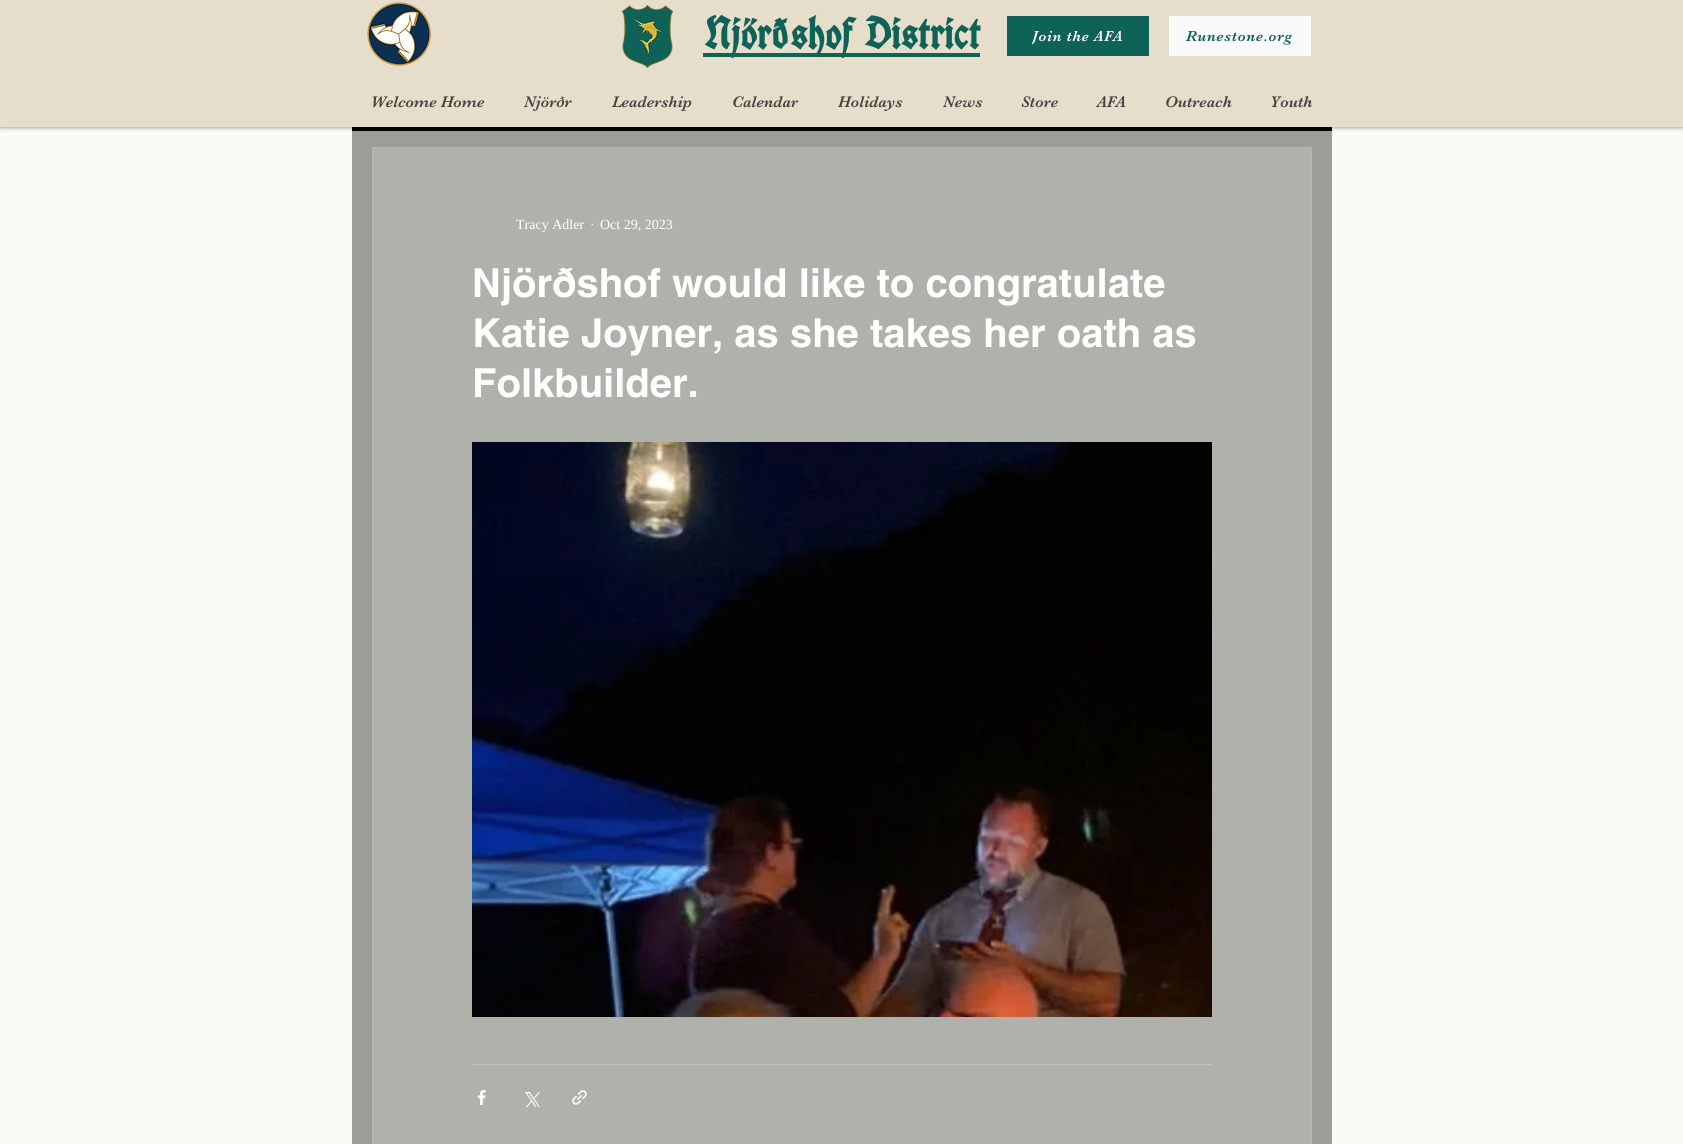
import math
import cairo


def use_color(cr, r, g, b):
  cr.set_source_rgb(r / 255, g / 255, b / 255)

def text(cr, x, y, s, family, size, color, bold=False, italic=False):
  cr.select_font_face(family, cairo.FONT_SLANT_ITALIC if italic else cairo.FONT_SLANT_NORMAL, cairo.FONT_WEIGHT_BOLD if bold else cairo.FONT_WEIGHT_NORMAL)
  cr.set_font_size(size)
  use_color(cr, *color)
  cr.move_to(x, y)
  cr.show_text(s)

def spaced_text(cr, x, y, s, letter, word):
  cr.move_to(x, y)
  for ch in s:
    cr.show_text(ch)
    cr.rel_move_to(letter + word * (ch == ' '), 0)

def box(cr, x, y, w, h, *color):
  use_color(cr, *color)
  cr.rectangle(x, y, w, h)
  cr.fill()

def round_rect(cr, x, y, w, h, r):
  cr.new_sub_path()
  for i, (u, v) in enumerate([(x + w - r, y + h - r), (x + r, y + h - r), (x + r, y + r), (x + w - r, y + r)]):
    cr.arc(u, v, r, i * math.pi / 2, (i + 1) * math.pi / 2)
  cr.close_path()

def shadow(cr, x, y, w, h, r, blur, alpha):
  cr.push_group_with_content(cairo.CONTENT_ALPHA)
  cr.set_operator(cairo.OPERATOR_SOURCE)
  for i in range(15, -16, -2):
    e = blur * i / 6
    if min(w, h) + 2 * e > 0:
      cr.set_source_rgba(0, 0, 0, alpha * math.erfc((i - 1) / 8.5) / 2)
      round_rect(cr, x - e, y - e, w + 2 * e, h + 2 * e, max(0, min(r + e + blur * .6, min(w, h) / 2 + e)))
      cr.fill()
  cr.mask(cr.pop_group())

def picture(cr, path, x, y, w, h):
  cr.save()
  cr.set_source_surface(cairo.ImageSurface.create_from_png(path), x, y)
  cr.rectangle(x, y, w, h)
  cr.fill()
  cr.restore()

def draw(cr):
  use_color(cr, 251, 250, 246)
  cr.paint()
  box(cr, 352, 131, 980, 1013, 157, 157, 151)
  use_color(cr, 0, 0, 0)
  shadow(cr, 0, 0, 1683, 127, 0, 2.5, 0.5)
  box(cr, 0, 0, 1683, 127, 230, 222, 202)
  picture(cr, "img_01.png", 367, 2, 64, 64)
  picture(cr, "img_02.png", 622, 5, 51, 63)
  box(cr, 703, 53, 277, 4, 14, 98, 88)
  box(cr, 1007, 16, 142, 40, 14, 98, 88)
  box(cr, 1169, 16, 142, 40, 250, 250, 250)
  box(cr, 352, 127, 980, 4, 0, 0, 0)
  use_color(cr, 177, 177, 171)
  cr.rectangle(372.5, 147.5, 939, 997)
  cr.fill_preserve()
  use_color(cr, 183, 183, 177)
  cr.set_line_width(1)
  cr.stroke()
  picture(cr, "img_03.png", 472, 442, 740, 575)
  box(cr, 472, 1064, 740, 1, 193, 193, 188)
  picture(cr, "img_04.png", 477, 1090, 9, 15)
  picture(cr, "img_05.png", 525, 1092, 15, 15)
  picture(cr, "img_06.png", 572, 1090, 15, 15)
  text(cr, 703, 50, "Njörðshof District", "UnifrakturCook", 45, (14, 98, 88), bold=True)
  cr.save()
  cr.rectangle(1032, 27, 91, 18)
  cr.clip()
  cr.select_font_face("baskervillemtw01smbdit")
  cr.set_font_size(15)
  use_color(cr, 255, 255, 255)
  spaced_text(cr, 1032, 41, "Join the AFA", 0.75, 0)
  cr.restore()
  cr.select_font_face("baskervillemtw01smbdit")
  cr.set_font_size(15)
  spaced_text(cr, 1186, 41, "Runestone.org", 0.75, 0)
  text(cr, 371, 107, "Welcome Home", "baskervillemtw01smbdit", 16, (68, 68, 68))
  text(cr, 524, 107, "Njörðr", "baskervillemtw01smbdit", 16, (68, 68, 68))
  text(cr, 612, 107, "Leadership", "baskervillemtw01smbdit", 16, (68, 68, 68))
  text(cr, 732, 107, "Calendar", "baskervillemtw01smbdit", 16, (68, 68, 68))
  text(cr, 838, 107, "Holidays", "baskervillemtw01smbdit", 16, (68, 68, 68))
  text(cr, 943, 107, "News", "baskervillemtw01smbdit", 16, (68, 68, 68))
  text(cr, 1021, 107, "Store", "baskervillemtw01smbdit", 16, (68, 68, 68))
  text(cr, 1097, 107, "AFA", "baskervillemtw01smbdit", 16, (68, 68, 68))
  text(cr, 1165, 107, "Outreach", "baskervillemtw01smbdit", 16, (68, 68, 68))
  text(cr, 1270, 107, "Youth", "baskervillemtw01smbdit", 16, (68, 68, 68))
  text(cr, 516, 229, "Tracy Adler", "Liberation Serif", 14, (255, 255, 255))
  text(cr, 590, 229, "·", "Liberation Serif", 14, (255, 255, 255))
  text(cr, 600, 229, "Oct 29, 2023", "Liberation Serif", 14, (255, 255, 255))
  text(cr, 472, 297, "Njörðshof would like to congratulate", "helvetica", 40, (255, 255, 255), bold=True)
  text(cr, 472, 347, "Katie Joyner, as she takes her oath as", "helvetica", 40, (255, 255, 255), bold=True)
  text(cr, 472, 397, "Folkbuilder.", "helvetica", 40, (255, 255, 255), bold=True)


surface = cairo.ImageSurface(cairo.FORMAT_RGB24, 1683, 1144)
cr = cairo.Context(surface)
options = cairo.FontOptions()
options.set_hint_metrics(cairo.HINT_METRICS_OFF)
options.set_hint_style(cairo.HINT_STYLE_NONE)
cr.set_font_options(options)
cr.set_miter_limit(4)
draw(cr)
surface.write_to_png("out.png")
